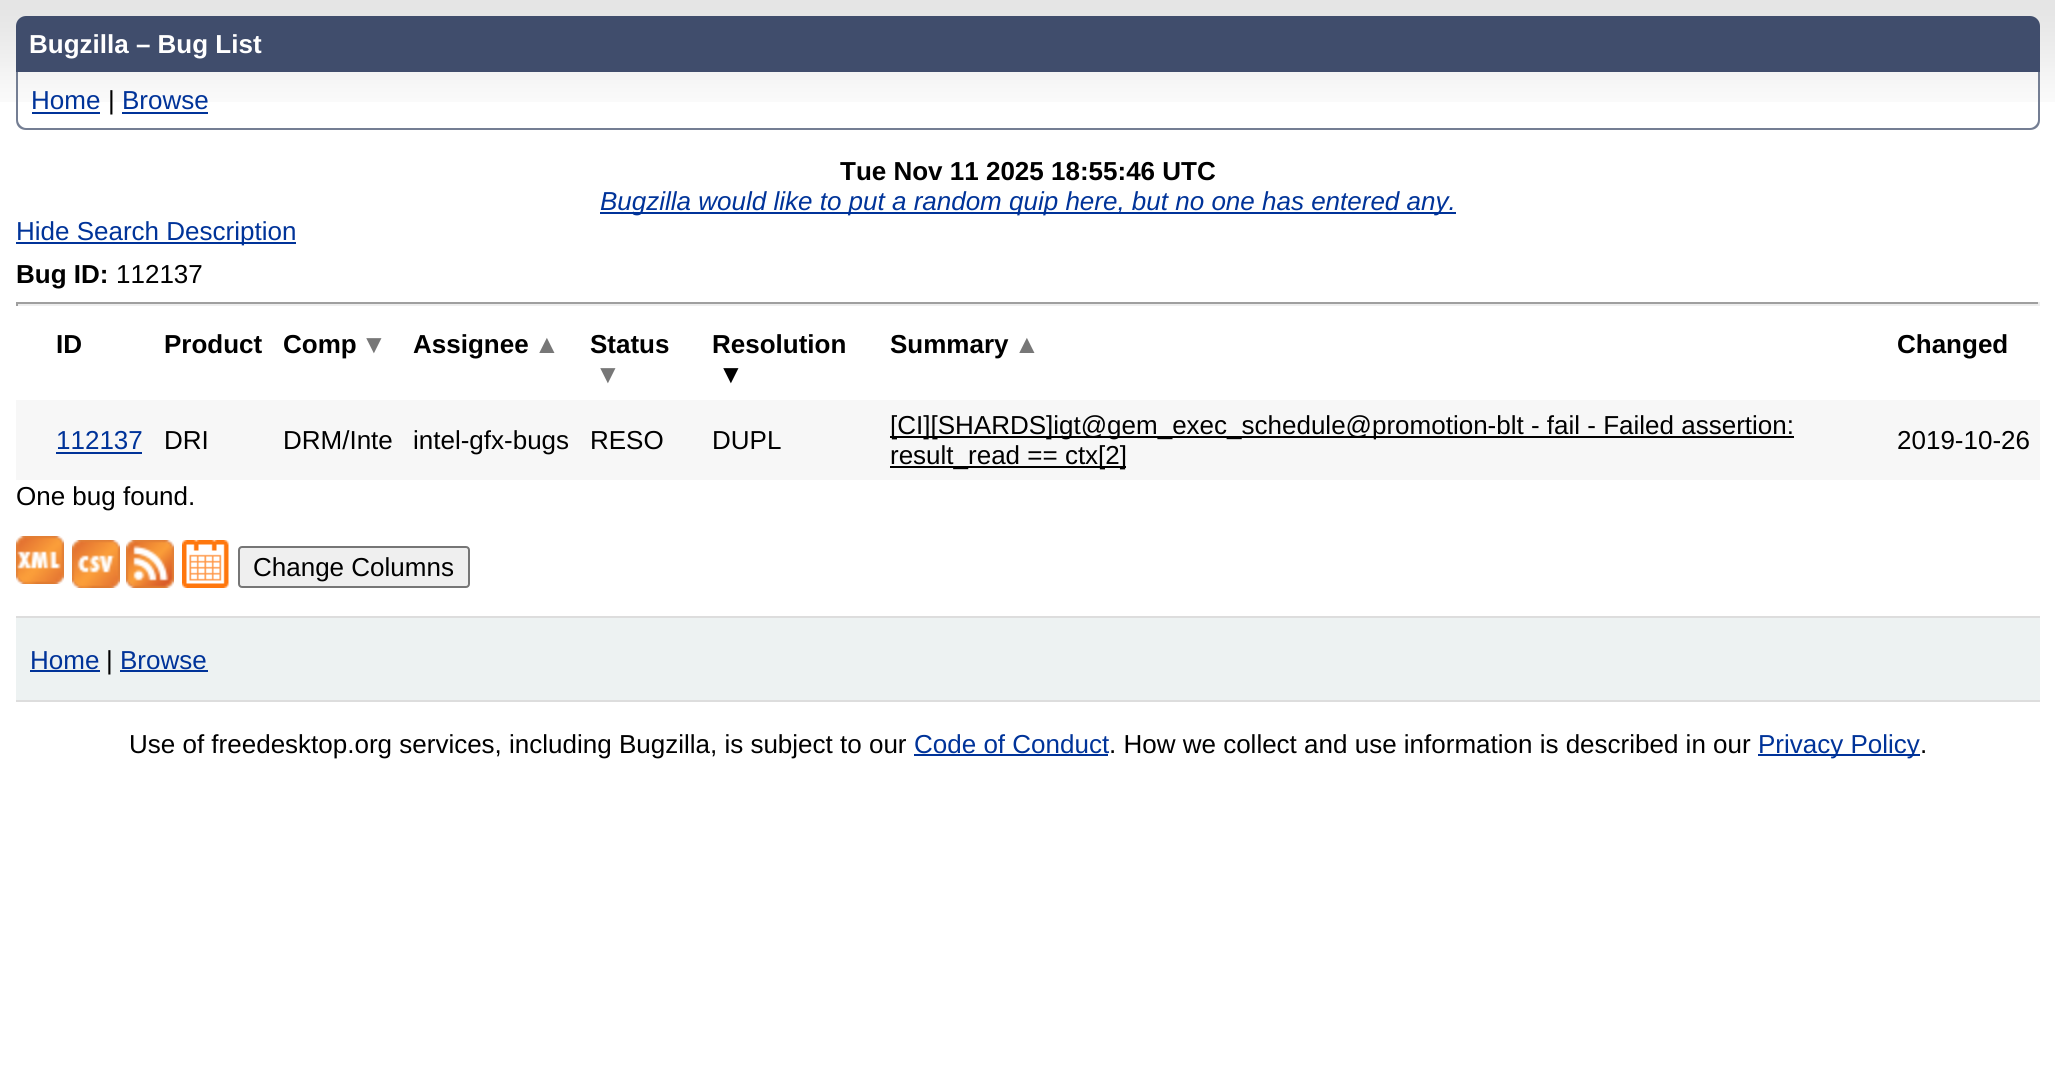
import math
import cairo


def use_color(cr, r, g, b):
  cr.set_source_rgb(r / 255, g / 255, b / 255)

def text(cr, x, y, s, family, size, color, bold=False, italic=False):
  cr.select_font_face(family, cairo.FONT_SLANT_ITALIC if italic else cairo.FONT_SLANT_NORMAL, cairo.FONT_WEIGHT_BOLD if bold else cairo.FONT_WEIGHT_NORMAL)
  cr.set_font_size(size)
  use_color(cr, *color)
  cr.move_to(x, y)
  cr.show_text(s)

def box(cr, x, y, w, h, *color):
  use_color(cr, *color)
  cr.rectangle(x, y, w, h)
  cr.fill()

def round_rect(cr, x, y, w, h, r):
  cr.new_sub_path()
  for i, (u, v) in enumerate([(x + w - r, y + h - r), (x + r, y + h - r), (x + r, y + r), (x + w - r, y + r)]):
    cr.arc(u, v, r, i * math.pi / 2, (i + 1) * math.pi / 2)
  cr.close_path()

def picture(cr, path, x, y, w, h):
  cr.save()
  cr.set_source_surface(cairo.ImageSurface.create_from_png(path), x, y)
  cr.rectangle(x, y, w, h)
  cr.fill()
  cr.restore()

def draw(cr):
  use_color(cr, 255, 255, 255)
  cr.paint()
  picture(cr, "img_01.png", 0, 0, 2055, 102)
  use_color(cr, 64, 77, 108)
  cr.new_path()
  cr.move_to(26, 16)
  cr.line_to(2030, 16)
  cr.curve_to(2035.5, 16, 2040, 20.5, 2040, 26)
  cr.line_to(2040, 72)
  cr.line_to(16, 72)
  cr.line_to(16, 26)
  cr.curve_to(16, 20.5, 20.5, 16, 26, 16)
  cr.close_path()
  cr.fill()
  use_color(cr, 116, 126, 147)
  cr.set_fill_rule(cairo.FILL_RULE_EVEN_ODD)
  cr.new_path()
  cr.move_to(16, 72)
  cr.line_to(2040, 72)
  cr.line_to(2040, 120)
  cr.curve_to(2040, 126, 2036, 130, 2030, 130)
  cr.line_to(26, 130)
  cr.curve_to(20, 130, 16, 126, 16, 120)
  cr.close_path()
  cr.move_to(18, 72)
  cr.line_to(2038, 72)
  cr.line_to(2038, 120)
  cr.curve_to(2038, 124, 2034, 128, 2030, 128)
  cr.line_to(26, 128)
  cr.curve_to(22, 128, 18, 124, 18, 120)
  cr.close_path()
  cr.fill()
  box(cr, 32, 112, 68, 2, 0, 51, 153)
  box(cr, 122, 112, 86, 2, 0, 51, 153)
  box(cr, 600, 212, 856, 2, 0, 51, 153)
  box(cr, 16, 242, 280, 2, 0, 51, 153)
  box(cr, 16, 302, 2024, 2, 159, 159, 159)
  box(cr, 2038, 302, 2, 4, 238, 238, 238)
  box(cr, 16, 304, 2024, 2, 238, 238, 238)
  box(cr, 16, 302, 2, 4, 159, 159, 159)
  box(cr, 16, 400, 2024, 80, 247, 247, 247)
  box(cr, 56, 452, 86, 2, 0, 51, 153)
  box(cr, 890, 436, 904, 2, 0, 0, 0)
  box(cr, 890, 466, 236, 2, 0, 0, 0)
  picture(cr, "img_02.png", 16, 536, 48, 48)
  picture(cr, "img_03.png", 72, 540, 48, 48)
  picture(cr, "img_04.png", 126, 540, 48, 48)
  picture(cr, "img_05.png", 182, 540, 47, 48)
  use_color(cr, 239, 239, 239)
  round_rect(cr, 239, 547, 230, 40, 3)
  cr.fill_preserve()
  use_color(cr, 118, 118, 118)
  cr.stroke()
  box(cr, 16, 618, 2024, 82, 237, 242, 242)
  box(cr, 16, 616, 2024, 2, 221, 221, 221)
  box(cr, 16, 700, 2024, 2, 221, 221, 221)
  box(cr, 30, 670, 70, 2, 0, 51, 153)
  box(cr, 120, 670, 88, 2, 0, 51, 153)
  box(cr, 914, 754, 194, 2, 0, 51, 153)
  box(cr, 1758, 754, 162, 2, 0, 51, 153)
  text(cr, 29, 53, "Bugzilla – Bug List", "Liberation Sans", 26, (255, 255, 255), bold=True)
  text(cr, 31, 109, "Home", "Liberation Sans", 26, (0, 51, 153))
  text(cr, 108, 109, "|", "Liberation Sans", 26, (0, 0, 0))
  text(cr, 122, 109, "Browse", "Liberation Sans", 26, (0, 51, 153))
  text(cr, 840, 180, "Tue Nov 11 2025 18:55:46 UTC", "Liberation Sans", 26, (0, 0, 0), bold=True)
  text(cr, 600, 210, "Bugzilla would like to put a random quip here, but no one has entered any.", "Liberation Sans", 26, (0, 51, 153), italic=True)
  text(cr, 16, 240, "Hide Search Description", "Liberation Sans", 26, (0, 51, 153))
  text(cr, 16, 283, "Bug ID:", "Liberation Sans", 26, (0, 0, 0), bold=True)
  text(cr, 116, 283, "112137", "Liberation Sans", 26, (0, 0, 0))
  text(cr, 56, 353, "ID", "Liberation Sans", 26, (0, 0, 0), bold=True)
  text(cr, 164, 353, "Product", "Liberation Sans", 26, (0, 0, 0), bold=True)
  text(cr, 283, 353, "Comp", "Liberation Sans", 26, (0, 0, 0), bold=True)
  text(cr, 361, 353, "▼", "Liberation Sans", 26, (119, 119, 119), bold=True)
  text(cr, 413, 353, "Assignee", "Liberation Sans", 26, (0, 0, 0), bold=True)
  text(cr, 534, 353, "▲", "Liberation Sans", 26, (119, 119, 119), bold=True)
  text(cr, 590, 353, "Status", "Liberation Sans", 26, (0, 0, 0), bold=True)
  text(cr, 595, 383, "▼", "Liberation Sans", 26, (119, 119, 119), bold=True)
  text(cr, 712, 353, "Resolution", "Liberation Sans", 26, (0, 0, 0), bold=True)
  text(cr, 718, 383, "▼", "Liberation Sans", 26, (0, 0, 0), bold=True)
  text(cr, 890, 353, "Summary", "Liberation Sans", 26, (0, 0, 0), bold=True)
  text(cr, 1014, 353, "▲", "Liberation Sans", 26, (119, 119, 119), bold=True)
  text(cr, 1897, 353, "Changed", "Liberation Sans", 26, (0, 0, 0), bold=True)
  text(cr, 56, 449, "112137", "Liberation Sans", 26, (0, 51, 153))
  text(cr, 164, 449, "DRI", "Liberation Sans", 26, (0, 0, 0))
  text(cr, 283, 449, "DRM/Inte", "Liberation Sans", 26, (0, 0, 0))
  text(cr, 413, 449, "intel-gfx-bugs", "Liberation Sans", 26, (0, 0, 0))
  text(cr, 590, 449, "RESO", "Liberation Sans", 26, (0, 0, 0))
  text(cr, 712, 449, "DUPL", "Liberation Sans", 26, (0, 0, 0))
  text(cr, 890, 434, "[CI][SHARDS]igt@gem_exec_schedule@promotion-blt - fail - Failed assertion:", "Liberation Sans", 26, (0, 0, 0))
  text(cr, 890, 464, "result_read == ctx[2]", "Liberation Sans", 26, (0, 0, 0))
  text(cr, 1897, 449, "2019-10-26", "Liberation Sans", 26, (0, 0, 0))
  text(cr, 16, 505, "One bug found.", "Liberation Sans", 26, (0, 0, 0))
  text(cr, 253, 576, "Change Columns", "Liberation Sans", 26, (0, 0, 0))
  text(cr, 30, 669, "Home", "Liberation Sans", 26, (0, 51, 153))
  text(cr, 106, 669, "|", "Liberation Sans", 26, (0, 0, 0))
  text(cr, 120, 669, "Browse", "Liberation Sans", 26, (0, 51, 153))
  text(cr, 129, 753, "Use of freedesktop.org services, including Bugzilla, is subject to our", "Liberation Sans", 26, (0, 0, 0))
  text(cr, 914, 753, "Code of Conduct", "Liberation Sans", 26, (0, 51, 153))
  text(cr, 1109, 753, ". How we collect and use information is described in our", "Liberation Sans", 26, (0, 0, 0))
  text(cr, 1758, 753, "Privacy Policy", "Liberation Sans", 26, (0, 51, 153))
  text(cr, 1920, 753, ".", "Liberation Sans", 26, (0, 0, 0))


surface = cairo.ImageSurface(cairo.FORMAT_RGB24, 2055, 1070)
cr = cairo.Context(surface)
options = cairo.FontOptions()
options.set_hint_metrics(cairo.HINT_METRICS_OFF)
options.set_hint_style(cairo.HINT_STYLE_NONE)
cr.set_font_options(options)
cr.set_miter_limit(4)
draw(cr)
surface.write_to_png("out.png")
